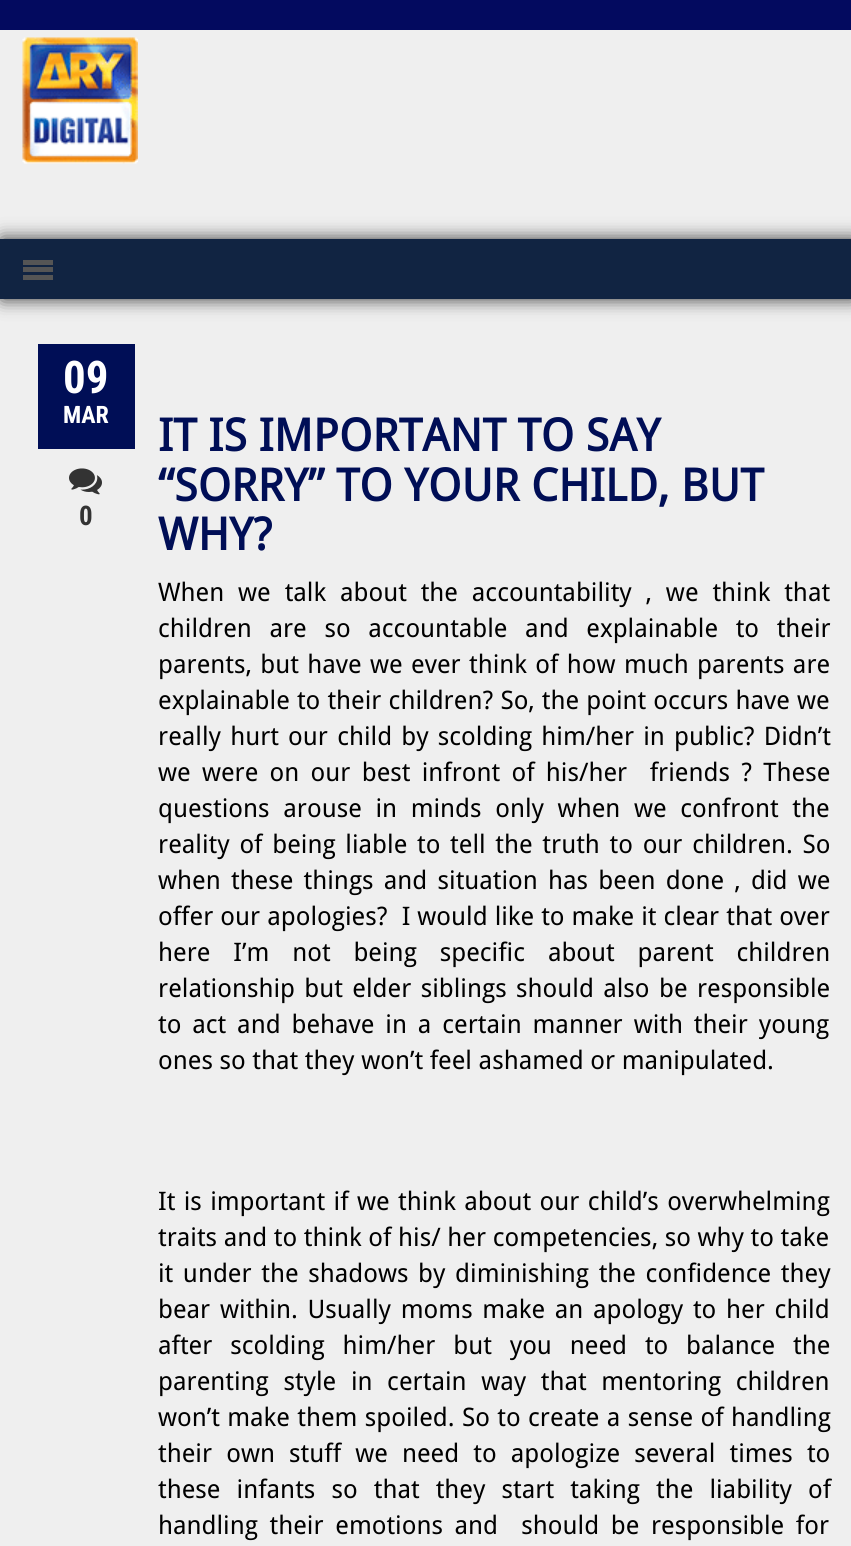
import math
import cairo


def use_color(cr, r, g, b):
  cr.set_source_rgb(r / 255, g / 255, b / 255)

def text(cr, x, y, s, family, size, color, bold=False, italic=False):
  cr.select_font_face(family, cairo.FONT_SLANT_ITALIC if italic else cairo.FONT_SLANT_NORMAL, cairo.FONT_WEIGHT_BOLD if bold else cairo.FONT_WEIGHT_NORMAL)
  cr.set_font_size(size)
  use_color(cr, *color)
  cr.move_to(x, y)
  cr.show_text(s)

def spaced_text(cr, x, y, s, letter, word):
  cr.move_to(x, y)
  for ch in s:
    cr.show_text(ch)
    cr.rel_move_to(letter + word * (ch == ' '), 0)

def box(cr, x, y, w, h, *color):
  use_color(cr, *color)
  cr.rectangle(x, y, w, h)
  cr.fill()

def round_rect(cr, x, y, w, h, r):
  cr.new_sub_path()
  for i, (u, v) in enumerate([(x + w - r, y + h - r), (x + r, y + h - r), (x + r, y + r), (x + w - r, y + r)]):
    cr.arc(u, v, r, i * math.pi / 2, (i + 1) * math.pi / 2)
  cr.close_path()

def shadow(cr, x, y, w, h, r, blur, alpha):
  cr.push_group_with_content(cairo.CONTENT_ALPHA)
  cr.set_operator(cairo.OPERATOR_SOURCE)
  for i in range(15, -16, -2):
    e = blur * i / 6
    if min(w, h) + 2 * e > 0:
      cr.set_source_rgba(0, 0, 0, alpha * math.erfc((i - 1) / 8.5) / 2)
      round_rect(cr, x - e, y - e, w + 2 * e, h + 2 * e, max(0, min(r + e + blur * .6, min(w, h) / 2 + e)))
      cr.fill()
  cr.mask(cr.pop_group())

def picture(cr, path, x, y, w, h):
  cr.save()
  cr.set_source_surface(cairo.ImageSurface.create_from_png(path), x, y)
  cr.rectangle(x, y, w, h)
  cr.fill()
  cr.restore()

def draw(cr):
  use_color(cr, 239, 239, 239)
  cr.paint()
  box(cr, 0, 0, 851, 30, 3, 10, 95)
  picture(cr, "img_01.png", 22, 37, 116, 127)
  use_color(cr, 51, 51, 51)
  shadow(cr, 2, 239, 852, 60, 0, 9, 1)
  box(cr, 0, 239, 851, 60, 17, 36, 66)
  box(cr, 23, 267, 30, 5, 85, 85, 85)
  box(cr, 23, 260, 30, 5, 85, 85, 85)
  box(cr, 23, 275, 30, 5, 85, 85, 85)
  box(cr, 38, 344, 97, 105, 0, 14, 86)
  picture(cr, "img_02.png", 69, 468, 33, 27)
  text(cr, 63, 393, "09", "Roboto Condensed", 45, (255, 255, 255), bold=True)
  text(cr, 63, 423, "MAR", "Roboto Condensed", 24, (255, 255, 255), bold=True)
  text(cr, 79, 525, "0", "Roboto Condensed", 27, (51, 51, 51), bold=True)
  text(cr, 158, 451, "IT IS IMPORTANT TO SAY", "Droid Sans", 45, (0, 14, 86), bold=True)
  text(cr, 158, 501, "“SORRY” TO YOUR CHILD, BUT", "Droid Sans", 45, (0, 14, 86), bold=True)
  text(cr, 158, 550, "WHY?", "Droid Sans", 45, (0, 14, 86), bold=True)
  cr.select_font_face("Droid Sans")
  cr.set_font_size(25.5)
  use_color(cr, 0, 0, 0)
  spaced_text(cr, 158, 601, "When we talk about the accountability , we think that", 0, 7.25)
  spaced_text(cr, 158, 637, "children are so accountable and explainable to their", 0, 11)
  spaced_text(cr, 158, 673, "parents, but have we ever think of how much parents are", 0, 1.75)
  spaced_text(cr, 158, 709, "explainable to their children? So, the point occurs have we", 0, 0.5)
  spaced_text(cr, 158, 745, "really hurt our child by scolding him/her in public? Didn’t", 0, 2.5)
  spaced_text(cr, 158, 781, "we were on our best infront of his/her  friends ? These", 0, 4.6)
  spaced_text(cr, 158, 817, "questions arouse in minds only when we confront the", 0, 7)
  spaced_text(cr, 158, 853, "reality of being liable to tell the truth to our children. So", 0, 3.1)
  spaced_text(cr, 158, 889, "when these things and situation has been done , did we", 0, 3.6)
  spaced_text(cr, 158, 925, "offer our apologies?  I would like to make it clear that over", 0, 0.4)
  spaced_text(cr, 158, 961, "here I’m not being specific about parent children", 0, 16.25)
  spaced_text(cr, 158, 997, "relationship but elder siblings should also be responsible", 0, 2.75)
  spaced_text(cr, 158, 1033, "to act and behave in a certain manner with their young", 0, 4.25)
  text(cr, 158, 1069, "ones so that they won’t feel ashamed or manipulated.", "Droid Sans", 25.5, (0, 0, 0))
  spaced_text(cr, 158, 1210, "It is important if we think about our child’s overwhelming", 0, 1.75)
  text(cr, 158, 1246, "traits and to think of his/ her competencies, so why to take", "Droid Sans", 25.5, (0, 0, 0))
  spaced_text(cr, 158, 1282, "it under the shadows by diminishing the confidence they", 0, 3)
  spaced_text(cr, 158, 1318, "bear within. Usually moms make an apology to her child", 0, 3.1)
  spaced_text(cr, 158, 1354, "after scolding him/her but you need to balance the", 0, 11.25)
  spaced_text(cr, 158, 1390, "parenting style in certain way that mentoring children", 0, 8)
  spaced_text(cr, 158, 1426, "won’t make them spoiled. So to create a sense of handling", 0, 0.75)
  spaced_text(cr, 158, 1462, "their own stuff we need to apologize several times to", 0, 7.5)
  spaced_text(cr, 158, 1498, "these infants so that they start taking the liability of", 0, 9.5)
  spaced_text(cr, 158, 1534, "handling their emotions and  should be responsible for", 0, 5)


surface = cairo.ImageSurface(cairo.FORMAT_RGB24, 851, 1546)
cr = cairo.Context(surface)
options = cairo.FontOptions()
options.set_hint_metrics(cairo.HINT_METRICS_OFF)
options.set_hint_style(cairo.HINT_STYLE_NONE)
cr.set_font_options(options)
cr.set_miter_limit(4)
draw(cr)
surface.write_to_png("out.png")
